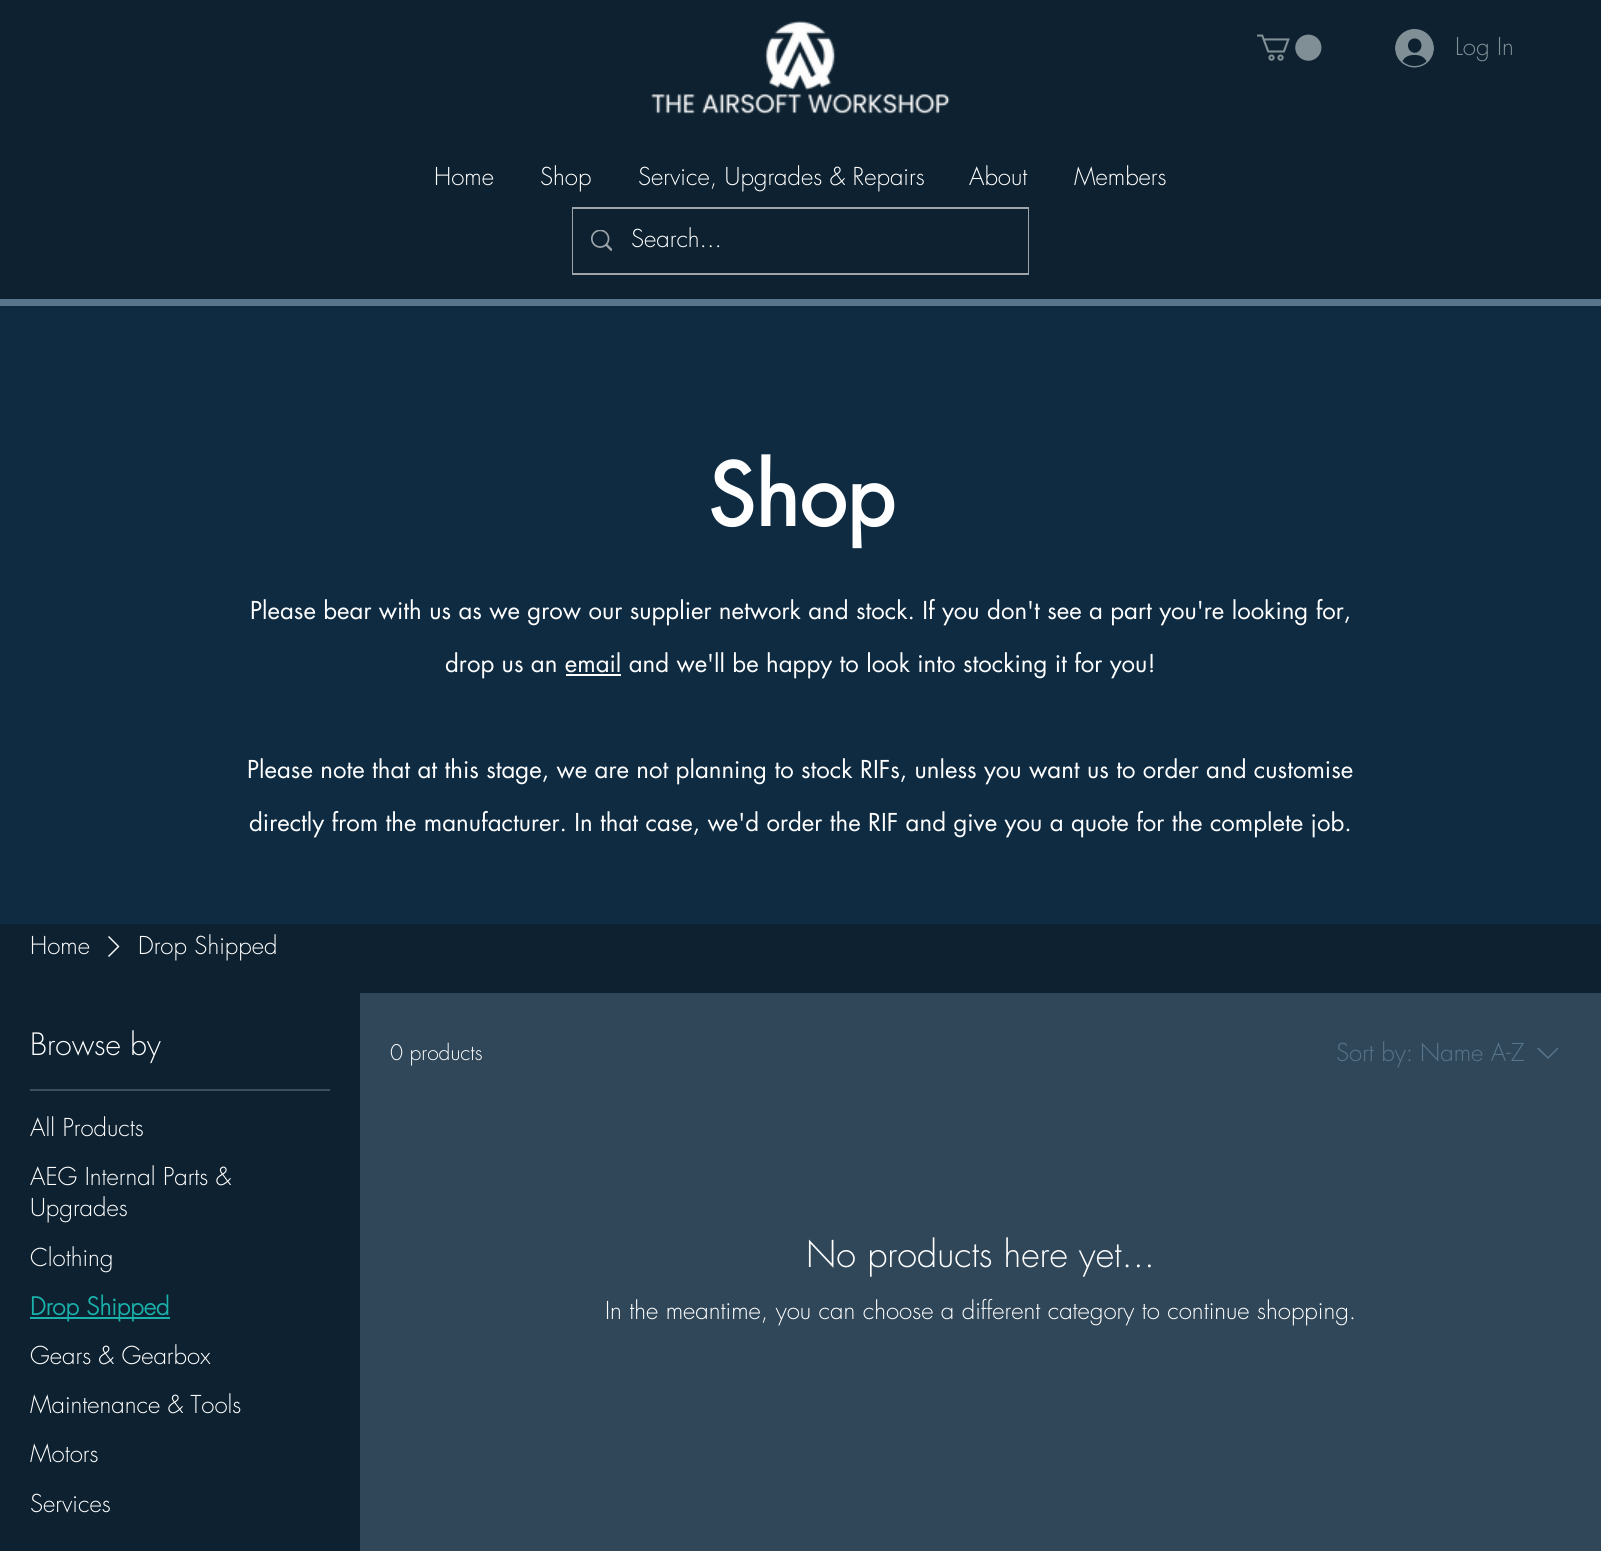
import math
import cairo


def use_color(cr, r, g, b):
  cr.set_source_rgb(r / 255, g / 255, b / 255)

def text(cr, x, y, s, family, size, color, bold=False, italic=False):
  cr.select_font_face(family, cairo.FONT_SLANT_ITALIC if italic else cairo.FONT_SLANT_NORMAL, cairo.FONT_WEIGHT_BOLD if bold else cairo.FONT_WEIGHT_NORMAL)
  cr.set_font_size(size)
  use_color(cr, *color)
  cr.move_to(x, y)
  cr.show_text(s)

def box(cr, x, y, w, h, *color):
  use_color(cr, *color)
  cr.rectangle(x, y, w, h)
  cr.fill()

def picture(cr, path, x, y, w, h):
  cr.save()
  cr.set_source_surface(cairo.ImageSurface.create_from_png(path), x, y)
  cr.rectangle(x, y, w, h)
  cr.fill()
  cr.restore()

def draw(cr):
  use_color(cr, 13, 33, 48)
  cr.paint()
  picture(cr, "img_01.png", 650, 20, 300, 95)
  picture(cr, "img_02.png", 1257, 34, 65, 27)
  picture(cr, "img_03.png", 1395, 29, 39, 39)
  cr.rectangle(573, 208, 455, 66)
  use_color(cr, 158, 166, 172)
  cr.stroke()
  box(cr, 573, 209, 455, 64, 13, 33, 48)
  picture(cr, "img_04.png", 591, 230, 21, 21)
  box(cr, 0, 299, 1601, 7, 88, 117, 140)
  box(cr, 0, 306, 1601, 618, 14, 43, 66)
  box(cr, 566, 674, 55, 2, 255, 255, 255)
  cr.set_fill_rule(cairo.FILL_RULE_EVEN_ODD)
  cr.new_path()
  cr.move_to(109, 936)
  cr.line_to(119.5, 946.5)
  cr.line_to(109, 957)
  cr.line_to(108, 956)
  cr.line_to(117.5, 946.5)
  cr.line_to(108, 937)
  cr.close_path()
  cr.fill()
  box(cr, 30, 1089, 300, 2, 61, 77, 89)
  box(cr, 30, 1317, 140, 2, 26, 177, 171)
  box(cr, 360, 993, 1241, 558, 47, 71, 89)
  use_color(cr, 88, 117, 140)
  cr.new_path()
  cr.move_to(1557.5, 1047.5)
  cr.line_to(1558.5, 1048.5)
  cr.line_to(1548, 1059)
  cr.line_to(1537, 1048.5)
  cr.line_to(1538.5, 1047.5)
  cr.line_to(1548, 1057)
  cr.close_path()
  cr.fill()
  text(cr, 1455, 55, "Log In", "futura Light", 24, (128, 143, 149))
  text(cr, 434, 185, "Home", "futura Light", 24, (255, 255, 255))
  text(cr, 540, 185, "Shop", "futura Light", 24, (255, 255, 255))
  text(cr, 638, 185, "Service, Upgrades & Repairs", "futura Light", 24, (255, 255, 255))
  text(cr, 969, 185, "About", "futura Light", 24, (255, 255, 255))
  text(cr, 1074, 185, "Members", "futura Light", 24, (255, 255, 255))
  text(cr, 631, 247, "Search...", "futura Light", 24, (255, 255, 255))
  text(cr, 708, 526, "Shop", "futura", 84, (255, 255, 255), bold=True)
  text(cr, 250, 619, "Please bear with us as we grow our supplier network and stock. If you don't see a part you're looking for,", "futura", 24, (255, 255, 255))
  text(cr, 445, 672, "drop us an email and we'll be happy to look into stocking it for you!", "futura", 24, (255, 255, 255))
  text(cr, 247, 778, "Please note that at this stage, we are not planning to stock RIFs, unless you want us to order and customise", "futura", 24, (255, 255, 255))
  text(cr, 249, 831, "directly from the manufacturer. In that case, we'd order the RIF and give you a quote for the complete job.", "futura", 24, (255, 255, 255))
  text(cr, 30, 954, "Home", "futura Light", 24, (255, 255, 255))
  text(cr, 138, 954, "Drop Shipped", "futura Light", 24, (255, 255, 255))
  text(cr, 30, 1055, "Browse by", "futura Light", 30, (255, 255, 255))
  text(cr, 30, 1136, "All Products", "futura Light", 24, (255, 255, 255))
  text(cr, 30, 1185, "AEG Internal Parts &", "futura Light", 24, (255, 255, 255))
  text(cr, 30, 1216, "Upgrades", "futura Light", 24, (255, 255, 255))
  text(cr, 30, 1266, "Clothing", "futura Light", 24, (255, 255, 255))
  text(cr, 30, 1315, "Drop Shipped", "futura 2", 24, (26, 177, 171), bold=True)
  text(cr, 30, 1364, "Gears & Gearbox", "futura Light", 24, (255, 255, 255))
  text(cr, 30, 1413, "Maintenance & Tools", "futura Light", 24, (255, 255, 255))
  text(cr, 30, 1462, "Motors", "futura Light", 24, (255, 255, 255))
  text(cr, 30, 1512, "Services", "futura Light", 24, (255, 255, 255))
  text(cr, 390, 1060, "0 products", "futura Light", 21, (255, 255, 255))
  text(cr, 1336, 1061, "Sort by:", "futura Light", 24, (88, 117, 140))
  text(cr, 1420, 1061, "Name A-Z", "futura Light", 24, (88, 117, 140))
  text(cr, 806, 1267, "No products here yet...", "futura Light", 36, (255, 255, 255))
  text(cr, 605, 1319, "In the meantime, you can choose a different category to continue shopping.", "futura Light", 24, (255, 255, 255))


surface = cairo.ImageSurface(cairo.FORMAT_RGB24, 1601, 1551)
cr = cairo.Context(surface)
options = cairo.FontOptions()
options.set_hint_metrics(cairo.HINT_METRICS_OFF)
options.set_hint_style(cairo.HINT_STYLE_NONE)
cr.set_font_options(options)
cr.set_miter_limit(4)
draw(cr)
surface.write_to_png("out.png")
